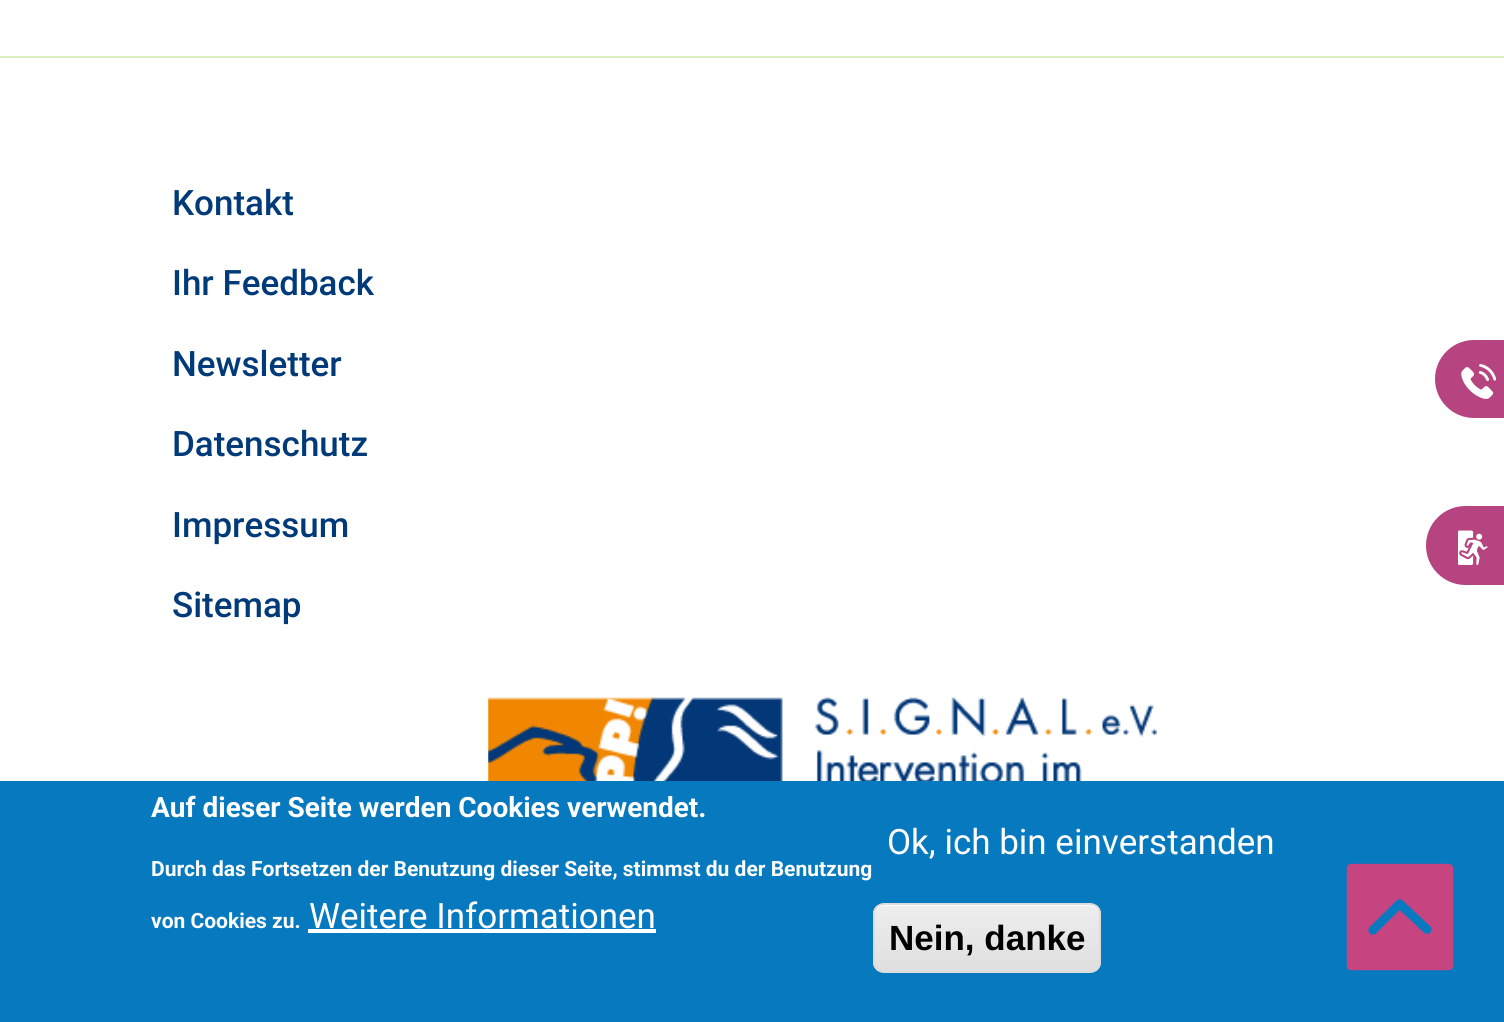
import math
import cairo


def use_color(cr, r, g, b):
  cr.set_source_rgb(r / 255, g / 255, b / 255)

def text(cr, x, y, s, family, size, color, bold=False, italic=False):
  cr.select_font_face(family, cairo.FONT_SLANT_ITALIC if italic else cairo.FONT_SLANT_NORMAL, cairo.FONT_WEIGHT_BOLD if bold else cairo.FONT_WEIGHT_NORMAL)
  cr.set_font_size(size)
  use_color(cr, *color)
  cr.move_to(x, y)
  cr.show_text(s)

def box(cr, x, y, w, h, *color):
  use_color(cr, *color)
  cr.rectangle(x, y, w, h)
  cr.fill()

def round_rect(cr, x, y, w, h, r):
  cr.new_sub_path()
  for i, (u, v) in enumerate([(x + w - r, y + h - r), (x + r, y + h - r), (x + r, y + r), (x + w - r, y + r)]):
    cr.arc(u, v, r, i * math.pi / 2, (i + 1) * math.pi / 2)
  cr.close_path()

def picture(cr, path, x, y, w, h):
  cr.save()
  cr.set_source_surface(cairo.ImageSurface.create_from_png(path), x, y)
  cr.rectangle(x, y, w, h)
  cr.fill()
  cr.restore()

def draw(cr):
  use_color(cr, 255, 255, 255)
  cr.paint()
  box(cr, 0, 56, 1504, 2, 220, 237, 188)
  picture(cr, "img_01.png", 488, 697, 669, 84)
  use_color(cr, 182, 68, 128)
  round_rect(cr, 1435, 340, 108, 78, 39)
  cr.fill()
  picture(cr, "img_02.png", 1461, 364, 35, 35)
  round_rect(cr, 1426, 506, 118, 79, 39.5)
  cr.fill()
  picture(cr, "img_03.png", 1458, 530, 30, 35)
  box(cr, 0, 781, 1504, 241, 7, 121, 191)
  box(cr, 308, 929, 348, 4, 255, 255, 255)
  cr.save()
  round_rect(cr, 873, 903, 228, 70, 11)
  cr.clip()
  gradient = cairo.LinearGradient(987, 905, 987, 971)
  gradient.add_color_stop_rgba(0.05, 0.929, 0.929, 0.929, 1)
  gradient.add_color_stop_rgba(1, 0.875, 0.875, 0.875, 1)
  cr.set_source(gradient)
  cr.rectangle(873, 905, 228, 66)
  cr.fill()
  cr.restore()
  cr.new_path()
  cr.move_to(884, 906)
  cr.line_to(1090, 906)
  cr.curve_to(1095, 906, 1099, 910, 1099, 915)
  cr.line_to(1099, 914)
  cr.curve_to(1099, 909, 1095, 905, 1090, 905)
  cr.line_to(884, 905)
  cr.curve_to(879, 905, 875, 909, 875, 914)
  cr.line_to(875, 915)
  cr.curve_to(875, 910, 879, 906, 884, 906)
  cr.close_path()
  cr.fill()
  round_rect(cr, 874, 904, 226, 68, 10)
  use_color(cr, 220, 220, 220)
  cr.stroke()
  picture(cr, "img_04.png", 1346, 863, 108, 108)
  text(cr, 172, 215, "Kontakt", "Roboto Medium", 35, (0, 58, 120))
  text(cr, 172, 295, "Ihr Feedback", "Roboto Medium", 35, (0, 58, 120))
  text(cr, 172, 376, "Newsletter", "Roboto Medium", 35, (0, 58, 120))
  text(cr, 172, 456, "Datenschutz", "Roboto Medium", 35, (0, 58, 120))
  text(cr, 172, 537, "Impressum", "Roboto Medium", 35, (0, 58, 120))
  text(cr, 172, 617, "Sitemap", "Roboto Medium", 35, (0, 58, 120))
  text(cr, 151, 817, "Auf dieser Seite werden Cookies verwendet.", "Roboto", 28, (255, 255, 255), bold=True)
  text(cr, 151, 876, "Durch das Fortsetzen der Benutzung dieser Seite, stimmst du der Benutzung", "Roboto", 21, (255, 255, 255), bold=True)
  text(cr, 151, 928, "von Cookies zu.", "Roboto", 21, (255, 255, 255), bold=True)
  text(cr, 309, 928, "Weitere Informationen", "Roboto", 35, (255, 255, 255))
  text(cr, 887, 854, "Ok, ich bin einverstanden", "Roboto", 35, (255, 255, 255))
  text(cr, 889, 950, "Nein, danke", "Liberation Sans", 35, (0, 0, 0), bold=True)


surface = cairo.ImageSurface(cairo.FORMAT_RGB24, 1504, 1022)
cr = cairo.Context(surface)
options = cairo.FontOptions()
options.set_hint_metrics(cairo.HINT_METRICS_OFF)
options.set_hint_style(cairo.HINT_STYLE_NONE)
cr.set_font_options(options)
cr.set_miter_limit(4)
draw(cr)
surface.write_to_png("out.png")
